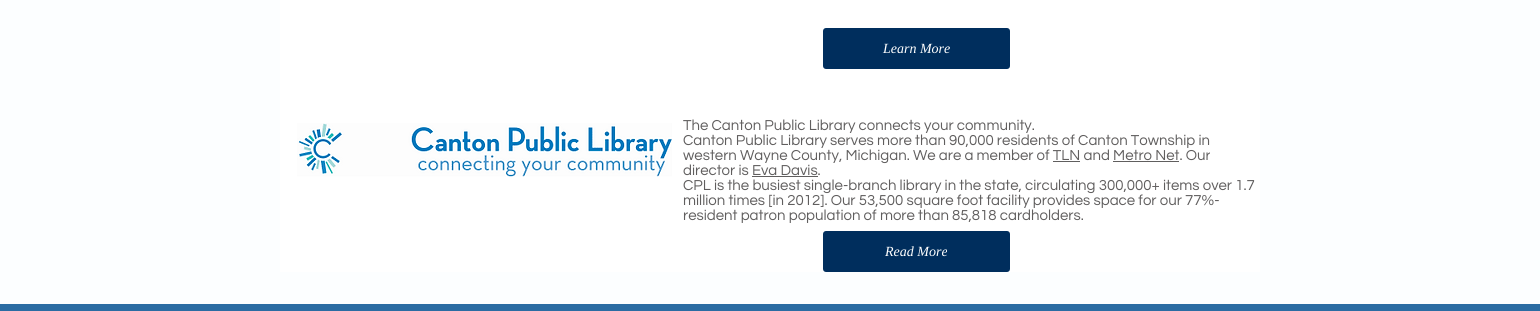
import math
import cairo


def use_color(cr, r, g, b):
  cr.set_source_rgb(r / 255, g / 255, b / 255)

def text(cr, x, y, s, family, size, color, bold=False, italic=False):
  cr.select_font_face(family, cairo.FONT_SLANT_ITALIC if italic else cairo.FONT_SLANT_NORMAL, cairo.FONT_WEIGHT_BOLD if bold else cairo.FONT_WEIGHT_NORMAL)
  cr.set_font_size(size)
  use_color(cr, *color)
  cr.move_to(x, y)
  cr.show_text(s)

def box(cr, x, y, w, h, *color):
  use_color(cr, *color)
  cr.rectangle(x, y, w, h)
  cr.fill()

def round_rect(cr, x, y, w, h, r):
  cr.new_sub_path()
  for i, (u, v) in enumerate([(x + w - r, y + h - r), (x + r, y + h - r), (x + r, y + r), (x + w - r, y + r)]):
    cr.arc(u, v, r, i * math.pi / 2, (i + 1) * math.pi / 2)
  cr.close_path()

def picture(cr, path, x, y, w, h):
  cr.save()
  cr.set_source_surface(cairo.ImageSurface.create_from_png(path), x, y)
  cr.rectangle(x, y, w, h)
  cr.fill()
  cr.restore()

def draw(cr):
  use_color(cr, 252, 254, 255)
  cr.paint()
  box(cr, 280, 0, 980, 272, 255, 255, 255)
  use_color(cr, 0, 46, 93)
  round_rect(cr, 823, 28, 187, 41, 3)
  cr.fill()
  picture(cr, "img_01.png", 297, 123, 375, 54)
  box(cr, 1053, 161, 27, 1, 96, 94, 94)
  box(cr, 1113, 161, 66, 1, 96, 94, 94)
  box(cr, 752, 176, 66, 1, 96, 94, 94)
  use_color(cr, 0, 46, 93)
  round_rect(cr, 823, 231, 187, 41, 3)
  cr.fill()
  box(cr, 0, 304, 1540, 7, 43, 108, 163)
  text(cr, 883, 53, "Learn More", "Liberation Serif", 14, (255, 255, 255), italic=True)
  text(cr, 683, 130, "The Canton Public Library connects your community.", "Questrial", 15, (96, 94, 94))
  text(cr, 683, 145, "Canton Public Library serves more than 90,000 residents of Canton Township in", "Questrial", 15, (96, 94, 94))
  text(cr, 683, 160, "western Wayne County, Michigan. We are a member of TLN and Metro Net. Our", "Questrial", 15, (96, 94, 94))
  text(cr, 683, 175, "director is Eva Davis.", "Questrial", 15, (96, 94, 94))
  text(cr, 683, 190, "CPL is the busiest single-branch library in the state, circulating 300,000+ items over 1.7", "Questrial", 15, (96, 94, 94))
  text(cr, 683, 205, "million times [in 2012]. Our 53,500 square foot facility provides space for our 77%-", "Questrial", 15, (96, 94, 94))
  text(cr, 683, 220, "resident patron population of more than 85,818 cardholders.", "Questrial", 15, (96, 94, 94))
  text(cr, 885, 256, "Read More", "Liberation Serif", 14, (255, 255, 255), italic=True)


surface = cairo.ImageSurface(cairo.FORMAT_RGB24, 1540, 311)
cr = cairo.Context(surface)
options = cairo.FontOptions()
options.set_hint_metrics(cairo.HINT_METRICS_OFF)
options.set_hint_style(cairo.HINT_STYLE_NONE)
cr.set_font_options(options)
cr.set_miter_limit(4)
draw(cr)
surface.write_to_png("out.png")
